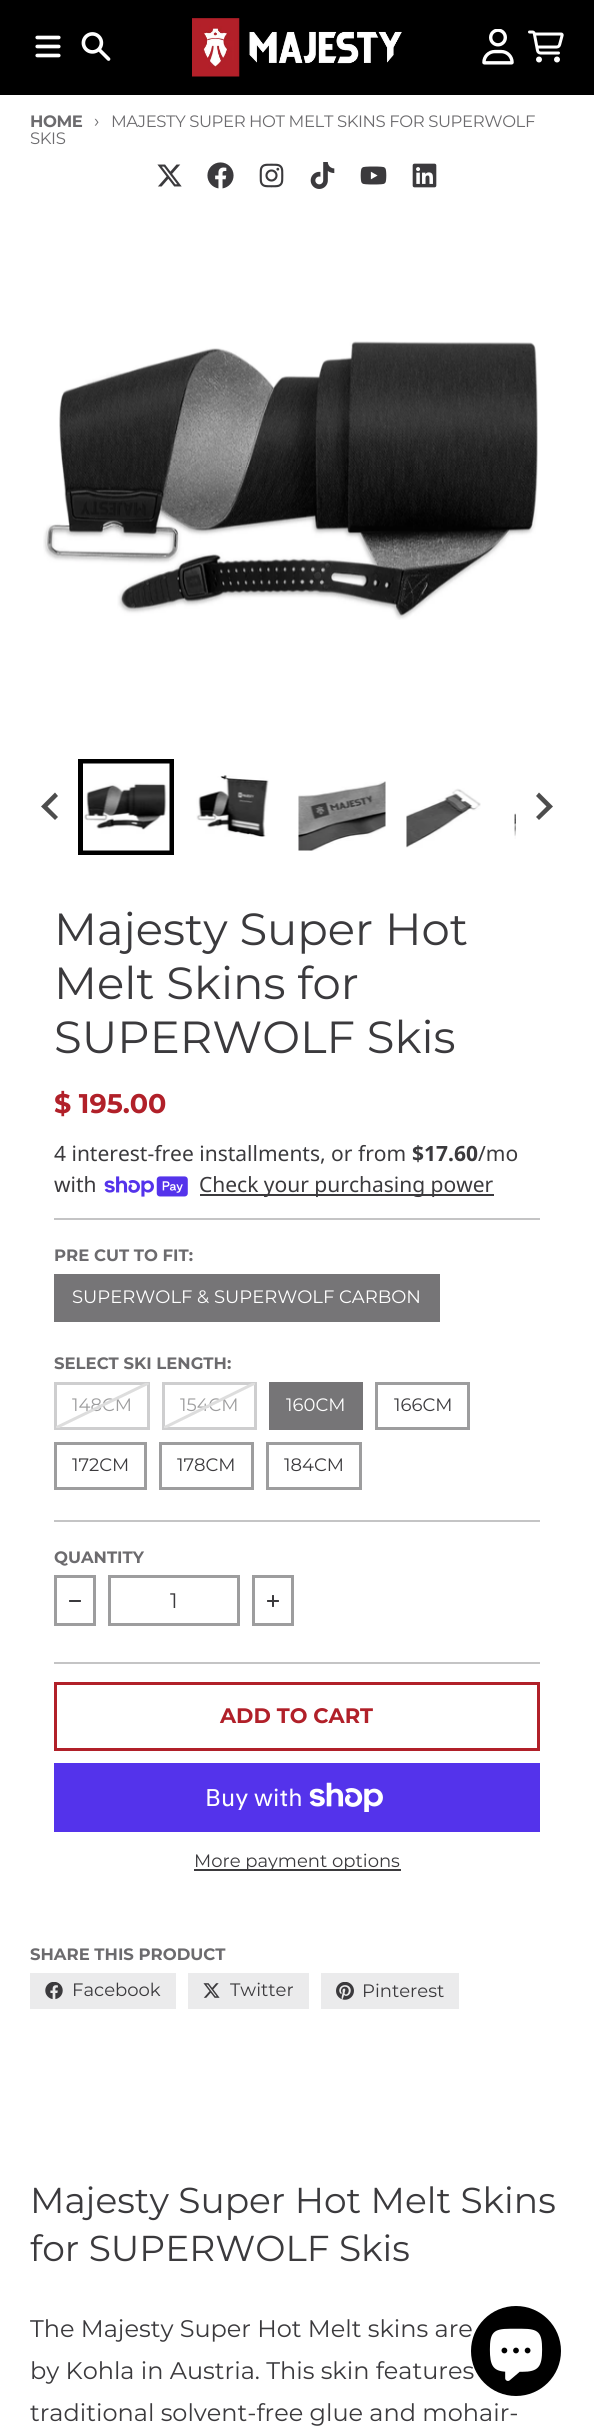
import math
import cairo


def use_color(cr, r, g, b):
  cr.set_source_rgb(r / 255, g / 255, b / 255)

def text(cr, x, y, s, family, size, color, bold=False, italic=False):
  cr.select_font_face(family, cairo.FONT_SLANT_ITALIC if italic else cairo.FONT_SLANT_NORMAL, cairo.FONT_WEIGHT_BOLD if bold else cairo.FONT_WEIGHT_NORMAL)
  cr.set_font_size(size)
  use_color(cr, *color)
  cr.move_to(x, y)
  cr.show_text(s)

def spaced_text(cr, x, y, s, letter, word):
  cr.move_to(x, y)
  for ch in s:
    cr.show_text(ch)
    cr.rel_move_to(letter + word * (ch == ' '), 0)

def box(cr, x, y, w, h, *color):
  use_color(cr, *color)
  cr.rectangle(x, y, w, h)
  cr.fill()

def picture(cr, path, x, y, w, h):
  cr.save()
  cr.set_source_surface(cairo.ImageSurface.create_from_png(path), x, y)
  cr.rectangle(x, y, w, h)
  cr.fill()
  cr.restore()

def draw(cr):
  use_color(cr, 0, 0, 0)
  cr.paint()
  picture(cr, "img_01.png", 35, 35, 26, 23)
  picture(cr, "img_02.png", 81, 32, 30, 29)
  picture(cr, "img_03.png", 192, 18, 210, 59)
  picture(cr, "img_04.png", 482, 29, 32, 36)
  picture(cr, "img_05.png", 528, 30, 36, 33)
  box(cr, 0, 95, 594, 2331, 255, 255, 255)
  picture(cr, "img_06.png", 157, 164, 25, 23)
  picture(cr, "img_07.png", 207, 162, 27, 27)
  picture(cr, "img_08.png", 259, 163, 25, 25)
  picture(cr, "img_09.png", 310, 162, 25, 27)
  picture(cr, "img_10.png", 360, 166, 27, 19)
  picture(cr, "img_11.png", 412, 163, 25, 25)
  picture(cr, "img_12.png", 43, 341, 495, 279)
  cr.rectangle(80.5, 761.5, 91, 91)
  use_color(cr, 0, 0, 0)
  cr.set_line_width(5)
  cr.stroke()
  picture(cr, "img_13.png", 83, 763, 87, 88)
  picture(cr, "img_14.png", 196, 775, 73, 62)
  picture(cr, "img_15.png", 298, 781, 88, 70)
  picture(cr, "img_16.png", 406, 788, 75, 60)
  picture(cr, "img_17.png", 514, 813, 2, 26)
  use_color(cr, 77, 77, 77)
  cr.new_path()
  cr.move_to(55, 792.5)
  cr.line_to(58, 796)
  cr.line_to(47.5, 806.5)
  cr.line_to(58, 817)
  cr.line_to(55, 820)
  cr.line_to(41, 806.5)
  cr.close_path()
  cr.fill()
  cr.new_path()
  cr.move_to(539, 792.5)
  cr.line_to(536, 796)
  cr.line_to(546.5, 806.5)
  cr.line_to(536, 817)
  cr.line_to(539, 820)
  cr.line_to(553, 806.5)
  cr.close_path()
  cr.fill()
  picture(cr, "img_18.png", 104, 1176, 84, 21)
  box(cr, 200, 1194, 294, 2, 59, 58, 61)
  box(cr, 54, 1218, 486, 2, 196, 196, 197)
  box(cr, 54, 1274, 386, 48, 118, 117, 119)
  cr.rectangle(55.5, 1383.5, 93, 45)
  use_color(cr, 206, 206, 207)
  cr.set_line_width(3)
  cr.stroke()
  cr.rectangle(163.5, 1383.5, 92, 45)
  cr.stroke()
  box(cr, 269, 1382, 94, 48, 118, 117, 119)
  cr.rectangle(376.5, 1383.5, 92, 45)
  use_color(cr, 157, 157, 158)
  cr.stroke()
  cr.rectangle(55.5, 1443.5, 90, 45)
  cr.stroke()
  cr.rectangle(160.5, 1443.5, 92, 45)
  cr.stroke()
  cr.rectangle(267.5, 1443.5, 93, 45)
  cr.stroke()
  box(cr, 54, 1520, 486, 2, 196, 196, 197)
  box(cr, 54, 1662, 486, 2, 196, 196, 197)
  cr.rectangle(55.5, 1576.5, 39, 48)
  use_color(cr, 157, 157, 158)
  cr.stroke()
  picture(cr, "img_19.png", 69, 1600, 12, 2)
  cr.rectangle(109.5, 1576.5, 129, 48)
  cr.stroke()
  cr.rectangle(253.5, 1576.5, 39, 48)
  cr.stroke()
  picture(cr, "img_20.png", 267, 1595, 12, 12)
  cr.rectangle(55.5, 1683.5, 483, 66)
  use_color(cr, 177, 32, 41)
  cr.stroke()
  box(cr, 54, 1763, 486, 69, 84, 51, 235)
  picture(cr, "img_21.png", 309, 1782, 74, 30)
  box(cr, 194, 1869, 207, 2, 59, 58, 61)
  box(cr, 30, 1973, 146, 36, 235, 235, 236)
  picture(cr, "img_22.png", 45, 1982, 18, 18)
  box(cr, 188, 1973, 121, 36, 235, 235, 236)
  picture(cr, "img_23.png", 203, 1983, 17, 15)
  box(cr, 321, 1973, 138, 36, 235, 235, 236)
  picture(cr, "img_24.png", 336, 1982, 18, 18)
  cr.select_font_face("Montserrat", cairo.FONT_SLANT_NORMAL, cairo.FONT_WEIGHT_BOLD)
  cr.set_font_size(16.5)
  use_color(cr, 108, 107, 110)
  spaced_text(cr, 30, 127, "HOME", -0.4, 0)
  cr.select_font_face("Montserrat")
  cr.set_font_size(18)
  spaced_text(cr, 94, 127, "›", -0.4, 0)
  cr.set_font_size(16.5)
  spaced_text(cr, 111, 127, "MAJESTY SUPER HOT MELT SKINS FOR SUPERWOLF", -0.4, 0)
  spaced_text(cr, 30, 144, "SKIS", -0.4, 0)
  text(cr, 54, 945, "Majesty Super Hot", "Montserrat", 45, (59, 58, 61))
  text(cr, 54, 999, "Melt Skins for", "Montserrat", 45, (59, 58, 61))
  text(cr, 54, 1053, "SUPERWOLF Skis", "Montserrat", 45, (59, 58, 61))
  text(cr, 54, 1113, "$ 195.00", "Montserrat", 27, (177, 32, 41), bold=True)
  text(cr, 54, 1161, "4 interest-free installments, or from", "Noto Sans", 21, (59, 58, 61))
  text(cr, 412, 1161, "$17.60", "Noto Sans", 21, (59, 58, 61), bold=True)
  text(cr, 478, 1161, "/mo", "Noto Sans", 21, (59, 58, 61))
  text(cr, 54, 1192, "with", "Noto Sans", 21, (59, 58, 61))
  text(cr, 199, 1192, "Check your purchasing power", "Noto Sans", 21, (59, 58, 61))
  text(cr, 54, 1261, "PRE CUT TO FIT:", "Montserrat", 16.5, (108, 107, 110), bold=True)
  text(cr, 72, 1303, "SUPERWOLF & SUPERWOLF CARBON", "Montserrat", 18, (255, 255, 255))
  text(cr, 54, 1369, "SELECT SKI LENGTH:", "Montserrat", 16.5, (108, 107, 110), bold=True)
  text(cr, 72, 1411, "148CM", "Montserrat", 18, (157, 157, 158))
  cr.save()
  cr.rectangle(56, 1383, 93, 45)
  cr.clip()
  cr.new_path()
  cr.move_to(55.5, 1428)
  cr.line_to(148.5, 1383)
  use_color(cr, 221, 221, 221)
  cr.stroke()
  cr.restore()
  text(cr, 180, 1411, "154CM", "Montserrat", 18, (157, 157, 158))
  cr.save()
  cr.rectangle(164, 1383, 91, 45)
  cr.clip()
  cr.new_path()
  cr.move_to(163.5, 1428)
  cr.line_to(255, 1383)
  use_color(cr, 221, 221, 221)
  cr.stroke()
  cr.restore()
  text(cr, 286, 1411, "160CM", "Montserrat", 18, (255, 255, 255))
  text(cr, 394, 1411, "166CM", "Montserrat", 18, (59, 58, 61))
  text(cr, 72, 1471, "172CM", "Montserrat", 18, (59, 58, 61))
  text(cr, 177, 1471, "178CM", "Montserrat", 18, (59, 58, 61))
  text(cr, 284, 1471, "184CM", "Montserrat", 18, (59, 58, 61))
  text(cr, 54, 1563, "QUANTITY", "Montserrat", 16.5, (108, 107, 110), bold=True)
  text(cr, 170, 1608, "1", "Montserrat", 21, (59, 58, 61))
  text(cr, 220, 1723, "ADD TO CART", "Montserrat", 21, (177, 32, 41), bold=True)
  text(cr, 205, 1806, "Buy with", "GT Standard", 24, (255, 255, 255))
  text(cr, 194, 1867, "More payment options", "Montserrat", 18, (59, 58, 61))
  text(cr, 30, 1960, "SHARE THIS PRODUCT", "Montserrat", 16.5, (108, 107, 110), bold=True)
  text(cr, 72, 1996, "Facebook", "Montserrat", 18, (59, 58, 61))
  text(cr, 230, 1996, "Twitter", "Montserrat", 18, (59, 58, 61))
  text(cr, 362, 1997, "Pinterest", "Montserrat", 18, (59, 58, 61))
  text(cr, 30, 2213, "Majesty Super Hot Melt Skins", "Montserrat", 36, (59, 58, 61))
  text(cr, 30, 2261, "for SUPERWOLF Skis", "Montserrat", 36, (59, 58, 61))
  text(cr, 30, 2337, "The Majesty Super Hot Melt skins are", "Montserrat", 24, (59, 58, 61))
  text(cr, 30, 2379, "by Kohla in Austria. This skin features", "Montserrat", 24, (59, 58, 61))
  text(cr, 30, 2421, "traditional solvent-free glue and mohair-", "Montserrat", 24, (59, 58, 61))
  use_color(cr, 0, 0, 0)
  cr.new_path()
  cr.arc(516, 2351, 45, 0, 2 * math.pi)
  cr.fill()
  picture(cr, "img_25.png", 489, 2328, 54, 53)


surface = cairo.ImageSurface(cairo.FORMAT_RGB24, 594, 2426)
cr = cairo.Context(surface)
options = cairo.FontOptions()
options.set_hint_metrics(cairo.HINT_METRICS_OFF)
options.set_hint_style(cairo.HINT_STYLE_NONE)
cr.set_font_options(options)
cr.set_miter_limit(4)
draw(cr)
surface.write_to_png("out.png")
